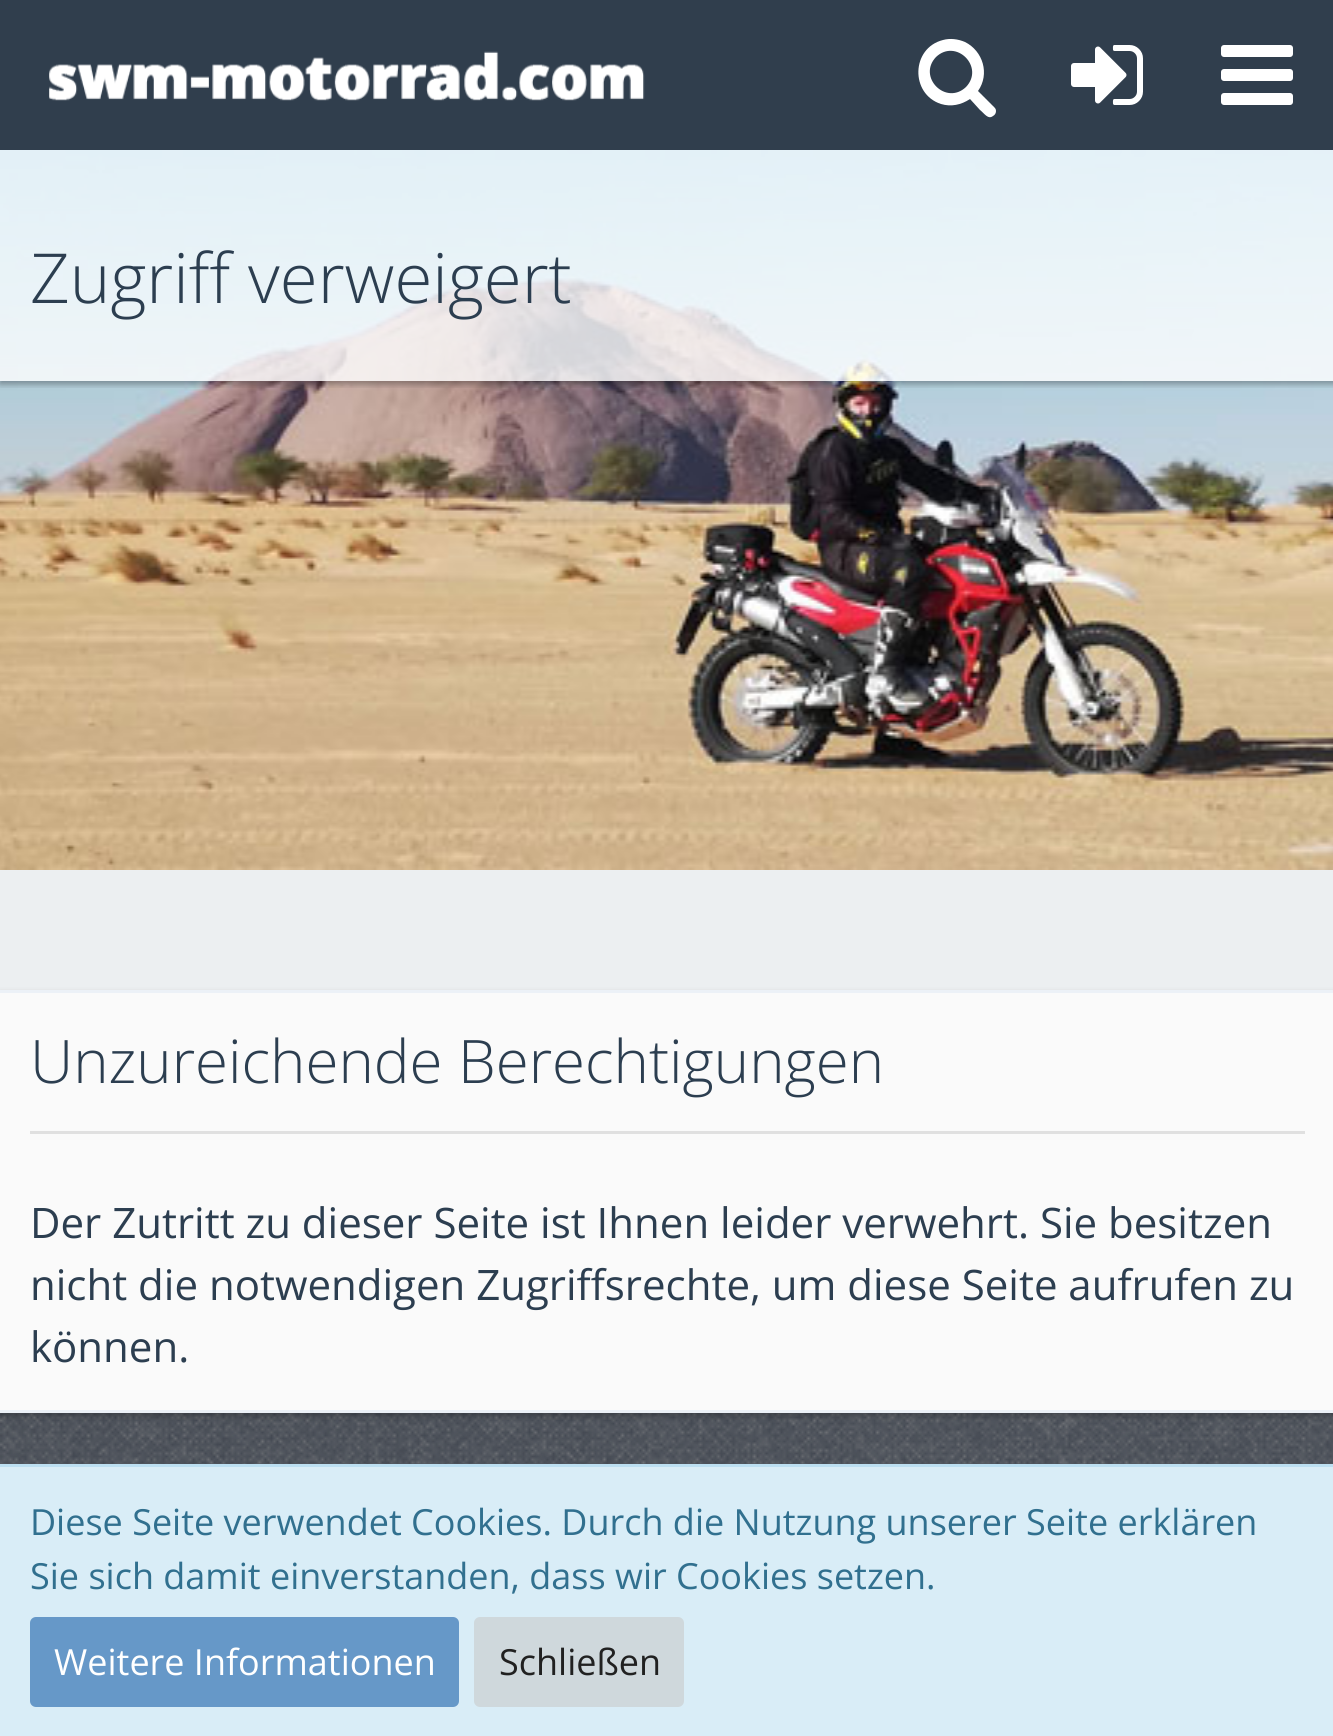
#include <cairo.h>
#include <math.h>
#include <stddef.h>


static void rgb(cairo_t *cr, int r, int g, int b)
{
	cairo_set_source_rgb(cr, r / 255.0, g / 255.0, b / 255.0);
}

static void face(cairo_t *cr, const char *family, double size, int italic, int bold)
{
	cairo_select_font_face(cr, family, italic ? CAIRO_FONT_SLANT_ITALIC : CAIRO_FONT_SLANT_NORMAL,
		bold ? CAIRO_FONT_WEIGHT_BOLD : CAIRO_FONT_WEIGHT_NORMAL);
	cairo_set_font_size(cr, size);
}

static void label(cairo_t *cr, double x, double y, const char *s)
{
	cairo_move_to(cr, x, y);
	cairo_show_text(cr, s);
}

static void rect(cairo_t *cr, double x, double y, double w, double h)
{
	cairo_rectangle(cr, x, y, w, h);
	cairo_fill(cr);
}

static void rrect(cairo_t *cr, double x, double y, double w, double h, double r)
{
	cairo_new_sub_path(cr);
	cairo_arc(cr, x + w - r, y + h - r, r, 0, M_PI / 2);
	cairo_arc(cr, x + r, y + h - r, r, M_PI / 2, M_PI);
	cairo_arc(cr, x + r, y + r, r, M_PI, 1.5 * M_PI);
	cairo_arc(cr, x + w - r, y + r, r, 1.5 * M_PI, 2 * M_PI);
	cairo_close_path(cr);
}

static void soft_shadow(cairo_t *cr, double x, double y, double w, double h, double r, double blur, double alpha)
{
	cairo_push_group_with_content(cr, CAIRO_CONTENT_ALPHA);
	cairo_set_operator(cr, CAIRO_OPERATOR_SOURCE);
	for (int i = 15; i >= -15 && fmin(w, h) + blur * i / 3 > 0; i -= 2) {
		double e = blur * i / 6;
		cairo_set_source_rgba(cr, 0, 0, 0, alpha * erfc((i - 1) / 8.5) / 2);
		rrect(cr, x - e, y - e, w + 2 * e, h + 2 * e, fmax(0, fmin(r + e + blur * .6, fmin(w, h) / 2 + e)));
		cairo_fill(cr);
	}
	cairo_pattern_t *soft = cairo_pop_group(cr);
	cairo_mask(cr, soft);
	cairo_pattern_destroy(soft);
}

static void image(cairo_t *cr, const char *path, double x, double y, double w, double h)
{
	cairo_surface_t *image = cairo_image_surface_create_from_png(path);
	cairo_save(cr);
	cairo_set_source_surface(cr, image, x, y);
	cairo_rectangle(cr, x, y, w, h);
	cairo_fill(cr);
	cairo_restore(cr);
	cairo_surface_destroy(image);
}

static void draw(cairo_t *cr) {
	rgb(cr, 25, 35, 53);
	cairo_paint(cr);
	image(cr, "image0.png", 0, 1413, 1333, 51);
	image(cr, "image4.png", 0, 150, 1333, 720);
	cairo_save(cr);
	cairo_rectangle(cr, 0, 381, 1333, 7);
	cairo_clip(cr);
	rgb(cr, 0, 0, 0);
	soft_shadow(cr, 0, 153, 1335, 231, 0, 3, 0.24);
	soft_shadow(cr, 0, 153, 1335, 231, 0, 4.5, 0.12);
	cairo_restore(cr);
	rgb(cr, 48, 62, 77);
	rect(cr, 0, 0, 1333, 150);
	image(cr, "image1.png", 49, 51, 596, 50);
	rgb(cr, 255, 255, 255);
	cairo_new_path(cr);
	cairo_move_to(cr, 966, 87);
	cairo_curve_to(cr, 985, 67, 956, 38, 936, 57);
	cairo_curve_to(cr, 917, 77, 946, 106, 966, 87);
	cairo_close_path(cr);
	cairo_move_to(cr, 996, 111);
	cairo_curve_to(cr, 996, 113, 995, 115, 993, 116);
	cairo_curve_to(cr, 988, 120, 984, 113, 980, 110);
	cairo_line_to(cr, 970, 99);
	cairo_curve_to(cr, 961, 105, 951, 107, 941, 104);
	cairo_curve_to(cr, 910, 94, 911, 48, 943, 40);
	cairo_curve_to(cr, 950, 38, 958, 39, 965, 42);
	cairo_curve_to(cr, 983, 51, 990, 74, 978, 91);
	cairo_line_to(cr, 994, 107);
	cairo_curve_to(cr, 995, 108, 996, 109, 996, 111);
	cairo_close_path(cr);
	cairo_fill(cr);
	image(cr, "image2.png", 1071, 45, 72, 60);
	image(cr, "image3.png", 1221, 45, 72, 60);
	cairo_set_source_rgba(cr, 1, 1, 1, 0.8);
	rect(cr, 0, 150, 1333, 231);
	face(cr, "Open Sans Light", 69, 0, 0);
	rgb(cr, 44, 62, 80);
	label(cr, 30, 303, "Zugriff verweigert");
	rgb(cr, 236, 239, 241);
	rect(cr, 0, 870, 1333, 120);
	rgb(cr, 0, 0, 0);
	soft_shadow(cr, 0, 993, 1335, 423, 0, 3, 0.24);
	rgb(cr, 250, 250, 250);
	rect(cr, 0, 993, 1333, 417);
	rgb(cr, 236, 241, 247);
	rect(cr, 0, 990, 1333, 3);
	rect(cr, 0, 1410, 1333, 3);
	rgb(cr, 224, 224, 224);
	rect(cr, 30, 1131, 1275, 3);
	face(cr, "Open Sans Light", 60, 0, 0);
	rgb(cr, 44, 62, 80);
	label(cr, 30, 1083, "Unzureichende Berechtigungen");
	face(cr, "Open Sans", 42, 0, 0);
	label(cr, 30, 1238, "Der Zutritt zu dieser Seite ist Ihnen leider verwehrt. Sie besitzen");
	label(cr, 30, 1300, "nicht die notwendigen Zugriffsrechte, um diese Seite aufrufen zu");
	label(cr, 30, 1362, "können.");
	rgb(cr, 217, 237, 247);
	rect(cr, 0, 1467, 1333, 269);
	rgb(cr, 188, 223, 241);
	rect(cr, 0, 1464, 1333, 3);
	face(cr, "Open Sans", 36, 0, 0);
	rgb(cr, 49, 112, 143);
	label(cr, 30, 1535, "Diese Seite verwendet Cookies. Durch die Nutzung unserer Seite erklären");
	label(cr, 30, 1589, "Sie sich damit einverstanden, dass wir Cookies setzen.");
	rgb(cr, 102, 152, 200);
	rrect(cr, 30, 1617, 429, 90, 6);
	cairo_fill(cr);
	rgb(cr, 255, 255, 255);
	label(cr, 54, 1675, "Weitere Informationen");
	rgb(cr, 207, 216, 220);
	rrect(cr, 474, 1617, 210, 90, 6);
	cairo_fill(cr);
	rgb(cr, 33, 33, 33);
	label(cr, 499, 1675, "Schließen");
}

int main(void) {
	cairo_surface_t *surface = cairo_image_surface_create(CAIRO_FORMAT_RGB24, 1333, 1736);
	cairo_t *cr = cairo_create(surface);
	cairo_font_options_t *options = cairo_font_options_create();
	cairo_font_options_set_hint_metrics(options, CAIRO_HINT_METRICS_OFF);
	cairo_font_options_set_hint_style(options, CAIRO_HINT_STYLE_NONE);
	cairo_set_font_options(cr, options);
	cairo_set_miter_limit(cr, 4);
	draw(cr);
	cairo_surface_write_to_png(surface, "render.png");
	cairo_font_options_destroy(options);
	cairo_destroy(cr);
	cairo_surface_destroy(surface);
	return 0;
}
